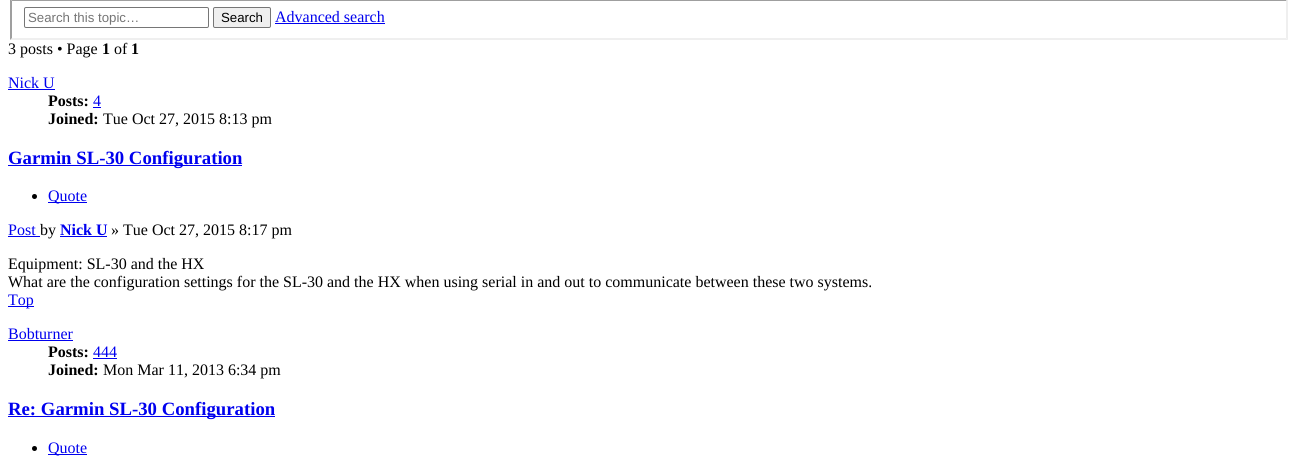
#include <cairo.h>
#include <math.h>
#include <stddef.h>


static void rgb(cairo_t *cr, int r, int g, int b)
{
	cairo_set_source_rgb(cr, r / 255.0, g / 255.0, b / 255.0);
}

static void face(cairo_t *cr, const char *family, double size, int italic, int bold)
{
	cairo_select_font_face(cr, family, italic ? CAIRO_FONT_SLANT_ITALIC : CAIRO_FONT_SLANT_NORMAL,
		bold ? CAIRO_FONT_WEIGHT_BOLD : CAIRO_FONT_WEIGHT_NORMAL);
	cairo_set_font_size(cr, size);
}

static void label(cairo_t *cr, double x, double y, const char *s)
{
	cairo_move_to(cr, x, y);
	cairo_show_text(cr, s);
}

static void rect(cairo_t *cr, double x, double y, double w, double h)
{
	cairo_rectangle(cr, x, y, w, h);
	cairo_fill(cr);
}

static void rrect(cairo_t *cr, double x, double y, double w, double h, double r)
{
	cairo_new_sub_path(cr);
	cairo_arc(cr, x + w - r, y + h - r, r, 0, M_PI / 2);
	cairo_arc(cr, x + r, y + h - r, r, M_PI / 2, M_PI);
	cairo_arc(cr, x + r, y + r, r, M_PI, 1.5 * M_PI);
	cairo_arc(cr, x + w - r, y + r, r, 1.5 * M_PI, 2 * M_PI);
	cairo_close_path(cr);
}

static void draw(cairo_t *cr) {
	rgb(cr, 255, 255, 255);
	cairo_paint(cr);
	rgb(cr, 159, 159, 159);
	cairo_new_path(cr);
	cairo_move_to(cr, 10, -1);
	cairo_line_to(cr, 1288, -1);
	cairo_line_to(cr, 1286, 1);
	cairo_line_to(cr, 12, 1);
	cairo_close_path(cr);
	cairo_fill(cr);
	rgb(cr, 239, 239, 239);
	cairo_new_path(cr);
	cairo_move_to(cr, 1288, -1);
	cairo_line_to(cr, 1288, 40);
	cairo_line_to(cr, 1286, 38);
	cairo_line_to(cr, 1286, 1);
	cairo_close_path(cr);
	cairo_fill(cr);
	cairo_new_path(cr);
	cairo_move_to(cr, 1288, 40);
	cairo_line_to(cr, 10, 40);
	cairo_line_to(cr, 12, 38);
	cairo_line_to(cr, 1286, 38);
	cairo_close_path(cr);
	cairo_fill(cr);
	rgb(cr, 159, 159, 159);
	cairo_new_path(cr);
	cairo_move_to(cr, 10, 40);
	cairo_line_to(cr, 10, -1);
	cairo_line_to(cr, 12, 1);
	cairo_line_to(cr, 12, 38);
	cairo_close_path(cr);
	cairo_fill(cr);
	rrect(cr, 24.5, 7.5, 184, 20, 1.5);
	rgb(cr, 118, 118, 118);
	cairo_set_line_width(cr, 1);
	cairo_stroke(cr);
	face(cr, "Liberation Sans", 13.25, 0, 0);
	rgb(cr, 117, 117, 117);
	label(cr, 28, 22, "Search this topic…");
	rgb(cr, 239, 239, 239);
	rrect(cr, 213.5, 7.5, 57, 20, 1.5);
	cairo_fill_preserve(cr);
	rgb(cr, 118, 118, 118);
	cairo_stroke(cr);
	rgb(cr, 0, 0, 0);
	label(cr, 221, 22, "Search");
	face(cr, "Liberation Serif", 16, 0, 0);
	rgb(cr, 0, 0, 238);
	label(cr, 275, 22, "Advanced search");
	rect(cr, 275, 23, 110, 1);
	rgb(cr, 0, 0, 0);
	label(cr, 8, 54, "3 posts • Page");
	face(cr, "Liberation Serif", 16, 0, 1);
	label(cr, 102, 54, "1");
	face(cr, "Liberation Serif", 16, 0, 0);
	label(cr, 114, 54, "of");
	face(cr, "Liberation Serif", 16, 0, 1);
	label(cr, 131, 54, "1");
	face(cr, "Liberation Serif", 16, 0, 0);
	rgb(cr, 0, 0, 238);
	label(cr, 8, 88, "Nick U");
	rect(cr, 8, 89, 47, 1);
	face(cr, "Liberation Serif", 16, 0, 1);
	rgb(cr, 0, 0, 0);
	label(cr, 48, 106, "Posts:");
	face(cr, "Liberation Serif", 16, 0, 0);
	rgb(cr, 0, 0, 238);
	label(cr, 93, 106, "4");
	rect(cr, 93, 107, 8, 1);
	face(cr, "Liberation Serif", 16, 0, 1);
	rgb(cr, 0, 0, 0);
	label(cr, 48, 124, "Joined:");
	face(cr, "Liberation Serif", 16, 0, 0);
	label(cr, 103, 124, "Tue Oct 27, 2015 8:13 pm");
	rgb(cr, 0, 0, 238);
	rect(cr, 8, 165, 234, 1);
	face(cr, "Liberation Serif", 18.75, 0, 1);
	label(cr, 8, 164, "Garmin SL-30 Configuration");
	rgb(cr, 0, 0, 0);
	cairo_new_path(cr);
	cairo_arc(cr, 34.5, 196.5, 2.5, 0, 2 * M_PI);
	cairo_fill(cr);
	rgb(cr, 0, 0, 238);
	rect(cr, 48, 202, 39, 1);
	face(cr, "Liberation Serif", 16, 0, 0);
	label(cr, 48, 201, "Quote");
	label(cr, 8, 235, "Post");
	rect(cr, 8, 236, 32, 1);
	rgb(cr, 0, 0, 0);
	label(cr, 40, 235, "by");
	face(cr, "Liberation Serif", 16, 0, 1);
	rgb(cr, 0, 0, 238);
	label(cr, 60, 235, "Nick U");
	rect(cr, 60, 236, 47, 1);
	face(cr, "Liberation Serif", 16, 0, 0);
	rgb(cr, 0, 0, 0);
	label(cr, 111, 235, "» Tue Oct 27, 2015 8:17 pm");
	label(cr, 8, 269, "Equipment: SL-30 and the HX");
	label(cr, 8, 287, "What are the configuration settings for the SL-30 and the HX when using serial in and out to communicate between these two systems.");
	rgb(cr, 0, 0, 238);
	rect(cr, 8, 306, 26, 1);
	label(cr, 8, 305, "Top");
	label(cr, 8, 339, "Bobturner");
	rect(cr, 8, 340, 65, 1);
	face(cr, "Liberation Serif", 16, 0, 1);
	rgb(cr, 0, 0, 0);
	label(cr, 48, 357, "Posts:");
	face(cr, "Liberation Serif", 16, 0, 0);
	rgb(cr, 0, 0, 238);
	label(cr, 93, 357, "444");
	rect(cr, 93, 358, 24, 1);
	face(cr, "Liberation Serif", 16, 0, 1);
	rgb(cr, 0, 0, 0);
	label(cr, 48, 375, "Joined:");
	face(cr, "Liberation Serif", 16, 0, 0);
	label(cr, 103, 375, "Mon Mar 11, 2013 6:34 pm");
	rgb(cr, 0, 0, 238);
	rect(cr, 8, 416, 267, 1);
	face(cr, "Liberation Serif", 18.75, 0, 1);
	label(cr, 8, 415, "Re: Garmin SL-30 Configuration");
	rgb(cr, 0, 0, 0);
	cairo_new_path(cr);
	cairo_arc(cr, 34.5, 448.5, 2.5, 0, 2 * M_PI);
	cairo_fill(cr);
	rgb(cr, 0, 0, 238);
	rect(cr, 48, 454, 39, 1);
	face(cr, "Liberation Serif", 16, 0, 0);
	label(cr, 48, 453, "Quote");
}

int main(void) {
	cairo_surface_t *surface = cairo_image_surface_create(CAIRO_FORMAT_RGB24, 1298, 473);
	cairo_t *cr = cairo_create(surface);
	cairo_font_options_t *options = cairo_font_options_create();
	cairo_font_options_set_hint_metrics(options, CAIRO_HINT_METRICS_OFF);
	cairo_font_options_set_hint_style(options, CAIRO_HINT_STYLE_NONE);
	cairo_set_font_options(cr, options);
	cairo_set_miter_limit(cr, 4);
	draw(cr);
	cairo_surface_write_to_png(surface, "render.png");
	cairo_font_options_destroy(options);
	cairo_destroy(cr);
	cairo_surface_destroy(surface);
	return 0;
}
